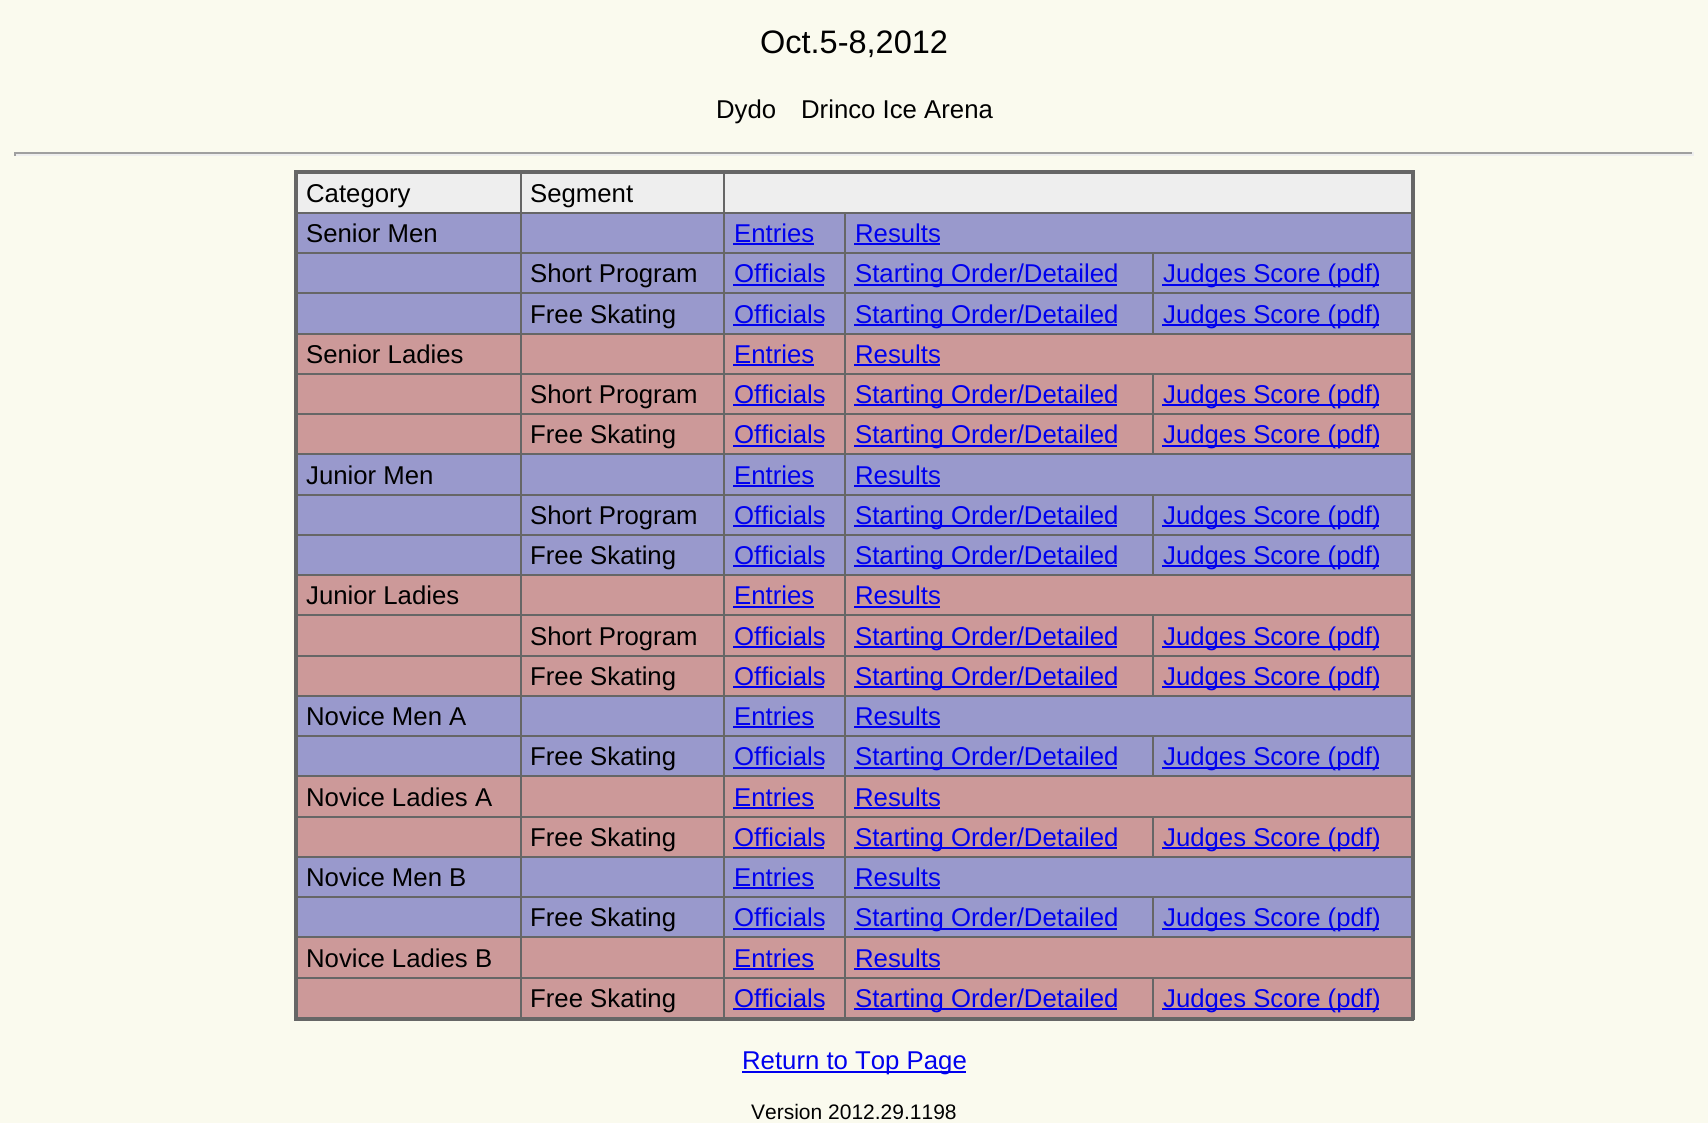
#include <cairo.h>
#include <math.h>
#include <stddef.h>


static void rgb(cairo_t *cr, int r, int g, int b)
{
	cairo_set_source_rgb(cr, r / 255.0, g / 255.0, b / 255.0);
}

static void face(cairo_t *cr, const char *family, double size, int italic, int bold)
{
	cairo_select_font_face(cr, family, italic ? CAIRO_FONT_SLANT_ITALIC : CAIRO_FONT_SLANT_NORMAL,
		bold ? CAIRO_FONT_WEIGHT_BOLD : CAIRO_FONT_WEIGHT_NORMAL);
	cairo_set_font_size(cr, size);
}

static void label(cairo_t *cr, double x, double y, const char *s)
{
	cairo_move_to(cr, x, y);
	cairo_show_text(cr, s);
}

static void rect(cairo_t *cr, double x, double y, double w, double h)
{
	cairo_rectangle(cr, x, y, w, h);
	cairo_fill(cr);
}

static void draw(cairo_t *cr) {
	rgb(cr, 250, 250, 238);
	cairo_paint(cr);
	face(cr, "Liberation Sans", 32.5, 0, 0);
	rgb(cr, 0, 0, 0);
	label(cr, 760, 53, "Oct.5-8,2012");
	face(cr, "Liberation Sans", 25.75, 0, 0);
	label(cr, 716, 118, "Dydo");
	label(cr, 801, 118, "Drinco Ice Arena");
	rgb(cr, 159, 159, 159);
	rect(cr, 14, 152, 1680, 2);
	rgb(cr, 238, 238, 238);
	rect(cr, 1692, 152, 2, 4);
	rect(cr, 14, 154, 1680, 2);
	rgb(cr, 159, 159, 159);
	rect(cr, 14, 152, 2, 4);
	rgb(cr, 238, 238, 238);
	rect(cr, 298, 174, 1113, 38);
	rgb(cr, 102, 102, 102);
	rect(cr, 844, 212, 570, 2);
	rgb(cr, 153, 153, 204);
	rect(cr, 298, 214, 1113, 38);
	rgb(cr, 102, 102, 102);
	rect(cr, 1152, 252, 262, 2);
	rgb(cr, 153, 153, 204);
	rect(cr, 298, 254, 1113, 38);
	rgb(cr, 102, 102, 102);
	rect(cr, 1152, 292, 262, 2);
	rgb(cr, 153, 153, 204);
	rect(cr, 298, 294, 1113, 39);
	rgb(cr, 102, 102, 102);
	rect(cr, 844, 333, 570, 2);
	rect(cr, 1152, 292, 2, 42);
	rect(cr, 844, 292, 309, 2);
	rect(cr, 1152, 252, 2, 42);
	rect(cr, 844, 252, 309, 2);
	rgb(cr, 204, 153, 153);
	rect(cr, 298, 335, 1113, 38);
	rgb(cr, 102, 102, 102);
	rect(cr, 1152, 373, 262, 2);
	rgb(cr, 204, 153, 153);
	rect(cr, 298, 375, 1113, 38);
	rgb(cr, 102, 102, 102);
	rect(cr, 1152, 413, 262, 2);
	rgb(cr, 204, 153, 153);
	rect(cr, 298, 415, 1113, 38);
	rgb(cr, 102, 102, 102);
	rect(cr, 844, 453, 570, 2);
	rect(cr, 1152, 413, 2, 42);
	rect(cr, 844, 413, 309, 2);
	rect(cr, 1152, 373, 2, 42);
	rect(cr, 844, 373, 309, 2);
	rgb(cr, 153, 153, 204);
	rect(cr, 298, 455, 1113, 39);
	rgb(cr, 102, 102, 102);
	rect(cr, 1152, 494, 262, 2);
	rgb(cr, 153, 153, 204);
	rect(cr, 298, 496, 1113, 38);
	rgb(cr, 102, 102, 102);
	rect(cr, 1152, 534, 262, 2);
	rgb(cr, 153, 153, 204);
	rect(cr, 298, 536, 1113, 38);
	rgb(cr, 102, 102, 102);
	rect(cr, 844, 574, 570, 2);
	rect(cr, 1152, 534, 2, 42);
	rect(cr, 844, 534, 309, 2);
	rect(cr, 1152, 494, 2, 42);
	rect(cr, 844, 494, 309, 2);
	rgb(cr, 204, 153, 153);
	rect(cr, 298, 576, 1113, 38);
	rgb(cr, 102, 102, 102);
	rect(cr, 1152, 614, 262, 2);
	rgb(cr, 204, 153, 153);
	rect(cr, 298, 616, 1113, 39);
	rgb(cr, 102, 102, 102);
	rect(cr, 1152, 655, 262, 2);
	rgb(cr, 204, 153, 153);
	rect(cr, 298, 657, 1113, 38);
	rgb(cr, 102, 102, 102);
	rect(cr, 844, 695, 570, 2);
	rect(cr, 1152, 655, 2, 42);
	rect(cr, 844, 655, 309, 2);
	rect(cr, 1152, 614, 2, 42);
	rect(cr, 844, 614, 309, 2);
	rgb(cr, 153, 153, 204);
	rect(cr, 298, 697, 1113, 38);
	rgb(cr, 102, 102, 102);
	rect(cr, 1152, 735, 262, 2);
	rgb(cr, 153, 153, 204);
	rect(cr, 298, 737, 1113, 38);
	rgb(cr, 102, 102, 102);
	rect(cr, 844, 775, 570, 2);
	rect(cr, 1152, 735, 2, 42);
	rect(cr, 844, 735, 309, 2);
	rgb(cr, 204, 153, 153);
	rect(cr, 298, 777, 1113, 39);
	rgb(cr, 102, 102, 102);
	rect(cr, 1152, 816, 262, 2);
	rgb(cr, 204, 153, 153);
	rect(cr, 298, 818, 1113, 38);
	rgb(cr, 102, 102, 102);
	rect(cr, 844, 856, 570, 2);
	rect(cr, 1152, 816, 2, 42);
	rect(cr, 844, 816, 309, 2);
	rgb(cr, 153, 153, 204);
	rect(cr, 298, 858, 1113, 38);
	rgb(cr, 102, 102, 102);
	rect(cr, 1152, 896, 262, 2);
	rgb(cr, 153, 153, 204);
	rect(cr, 298, 898, 1113, 38);
	rgb(cr, 102, 102, 102);
	rect(cr, 844, 936, 570, 2);
	rect(cr, 1152, 896, 2, 42);
	rect(cr, 844, 896, 309, 2);
	rgb(cr, 204, 153, 153);
	rect(cr, 298, 938, 1113, 39);
	rgb(cr, 102, 102, 102);
	rect(cr, 1152, 977, 262, 2);
	rgb(cr, 204, 153, 153);
	rect(cr, 298, 979, 1113, 38);
	rgb(cr, 102, 102, 102);
	rect(cr, 1152, 977, 2, 43);
	rect(cr, 844, 977, 309, 2);
	rect(cr, 844, 977, 2, 43);
	rect(cr, 723, 977, 122, 2);
	rect(cr, 844, 936, 2, 42);
	rect(cr, 723, 936, 122, 2);
	rect(cr, 844, 896, 2, 42);
	rect(cr, 723, 896, 122, 2);
	rect(cr, 844, 856, 2, 42);
	rect(cr, 723, 856, 122, 2);
	rect(cr, 844, 816, 2, 42);
	rect(cr, 723, 816, 122, 2);
	rect(cr, 844, 775, 2, 42);
	rect(cr, 723, 775, 122, 2);
	rect(cr, 844, 735, 2, 42);
	rect(cr, 723, 735, 122, 2);
	rect(cr, 844, 695, 2, 42);
	rect(cr, 723, 695, 122, 2);
	rect(cr, 844, 655, 2, 42);
	rect(cr, 723, 655, 122, 2);
	rect(cr, 844, 614, 2, 42);
	rect(cr, 723, 614, 122, 2);
	rect(cr, 844, 574, 2, 42);
	rect(cr, 723, 574, 122, 2);
	rect(cr, 844, 534, 2, 42);
	rect(cr, 723, 534, 122, 2);
	rect(cr, 844, 494, 2, 42);
	rect(cr, 723, 494, 122, 2);
	rect(cr, 844, 453, 2, 42);
	rect(cr, 723, 453, 122, 2);
	rect(cr, 844, 413, 2, 42);
	rect(cr, 723, 413, 122, 2);
	rect(cr, 844, 373, 2, 42);
	rect(cr, 723, 373, 122, 2);
	rect(cr, 844, 333, 2, 42);
	rect(cr, 723, 333, 122, 2);
	rect(cr, 844, 292, 2, 42);
	rect(cr, 723, 292, 122, 2);
	rect(cr, 844, 252, 2, 42);
	rect(cr, 723, 252, 122, 2);
	rect(cr, 844, 212, 2, 42);
	rect(cr, 723, 212, 122, 2);
	rect(cr, 723, 977, 2, 43);
	rect(cr, 520, 977, 205, 2);
	rect(cr, 723, 936, 2, 42);
	rect(cr, 520, 936, 205, 2);
	rect(cr, 723, 896, 2, 42);
	rect(cr, 520, 896, 205, 2);
	rect(cr, 723, 856, 2, 42);
	rect(cr, 520, 856, 205, 2);
	rect(cr, 723, 816, 2, 42);
	rect(cr, 520, 816, 205, 2);
	rect(cr, 723, 775, 2, 42);
	rect(cr, 520, 775, 205, 2);
	rect(cr, 723, 735, 2, 42);
	rect(cr, 520, 735, 205, 2);
	rect(cr, 723, 695, 2, 42);
	rect(cr, 520, 695, 205, 2);
	rect(cr, 723, 655, 2, 42);
	rect(cr, 520, 655, 205, 2);
	rect(cr, 723, 614, 2, 42);
	rect(cr, 520, 614, 205, 2);
	rect(cr, 723, 574, 2, 42);
	rect(cr, 520, 574, 205, 2);
	rect(cr, 723, 534, 2, 42);
	rect(cr, 520, 534, 205, 2);
	rect(cr, 723, 494, 2, 42);
	rect(cr, 520, 494, 205, 2);
	rect(cr, 723, 453, 2, 42);
	rect(cr, 520, 453, 205, 2);
	rect(cr, 723, 413, 2, 42);
	rect(cr, 520, 413, 205, 2);
	rect(cr, 723, 373, 2, 42);
	rect(cr, 520, 373, 205, 2);
	rect(cr, 723, 333, 2, 42);
	rect(cr, 520, 333, 205, 2);
	rect(cr, 723, 292, 2, 42);
	rect(cr, 520, 292, 205, 2);
	rect(cr, 723, 252, 2, 42);
	rect(cr, 520, 252, 205, 2);
	rect(cr, 723, 212, 2, 42);
	rect(cr, 520, 212, 205, 2);
	rect(cr, 520, 977, 2, 43);
	rect(cr, 296, 977, 226, 2);
	rect(cr, 520, 936, 2, 42);
	rect(cr, 296, 936, 226, 2);
	rect(cr, 520, 896, 2, 42);
	rect(cr, 296, 896, 226, 2);
	rect(cr, 520, 856, 2, 42);
	rect(cr, 296, 856, 226, 2);
	rect(cr, 520, 816, 2, 42);
	rect(cr, 296, 816, 226, 2);
	rect(cr, 520, 775, 2, 42);
	rect(cr, 296, 775, 226, 2);
	rect(cr, 520, 735, 2, 42);
	rect(cr, 296, 735, 226, 2);
	rect(cr, 520, 695, 2, 42);
	rect(cr, 296, 695, 226, 2);
	rect(cr, 520, 655, 2, 42);
	rect(cr, 296, 655, 226, 2);
	rect(cr, 520, 614, 2, 42);
	rect(cr, 296, 614, 226, 2);
	rect(cr, 520, 574, 2, 42);
	rect(cr, 296, 574, 226, 2);
	rect(cr, 520, 534, 2, 42);
	rect(cr, 296, 534, 226, 2);
	rect(cr, 520, 494, 2, 42);
	rect(cr, 296, 494, 226, 2);
	rect(cr, 520, 453, 2, 42);
	rect(cr, 296, 453, 226, 2);
	rect(cr, 520, 413, 2, 42);
	rect(cr, 296, 413, 226, 2);
	rect(cr, 520, 373, 2, 42);
	rect(cr, 296, 373, 226, 2);
	rect(cr, 520, 333, 2, 42);
	rect(cr, 296, 333, 226, 2);
	rect(cr, 520, 292, 2, 42);
	rect(cr, 296, 292, 226, 2);
	rect(cr, 520, 252, 2, 42);
	rect(cr, 296, 252, 226, 2);
	rect(cr, 520, 212, 2, 42);
	rect(cr, 296, 212, 226, 2);
	rect(cr, 520, 172, 2, 42);
	rect(cr, 723, 172, 2, 42);
	rect(cr, 294, 170, 1120, 4);
	rect(cr, 1411, 170, 4, 850);
	rect(cr, 294, 1017, 1120, 4);
	rect(cr, 294, 170, 4, 850);
	rgb(cr, 0, 0, 0);
	label(cr, 306, 202, "Category");
	label(cr, 530, 202, "Segment");
	label(cr, 306, 242, "Senior Men");
	rgb(cr, 0, 0, 238);
	label(cr, 734, 242, "Entries");
	rect(cr, 733, 243, 81, 2);
	label(cr, 855, 242, "Results");
	rect(cr, 854, 243, 86, 2);
	rgb(cr, 0, 0, 0);
	label(cr, 530, 282, "Short Program");
	rgb(cr, 0, 0, 238);
	label(cr, 734, 282, "Officials");
	rect(cr, 733, 284, 91, 2);
	rect(cr, 854, 284, 263, 2);
	label(cr, 855, 282, "Starting Order/Detailed");
	rect(cr, 1162, 284, 217, 2);
	label(cr, 1163, 282, "Judges Score (pdf)");
	rgb(cr, 0, 0, 0);
	label(cr, 530, 323, "Free Skating");
	rgb(cr, 0, 0, 238);
	label(cr, 734, 323, "Officials");
	rect(cr, 733, 324, 91, 2);
	rect(cr, 854, 324, 263, 2);
	label(cr, 855, 323, "Starting Order/Detailed");
	rect(cr, 1162, 324, 217, 2);
	label(cr, 1163, 323, "Judges Score (pdf)");
	rgb(cr, 0, 0, 0);
	label(cr, 306, 363, "Senior Ladies");
	rgb(cr, 0, 0, 238);
	label(cr, 734, 363, "Entries");
	rect(cr, 733, 364, 81, 2);
	label(cr, 855, 363, "Results");
	rect(cr, 854, 364, 86, 2);
	rgb(cr, 0, 0, 0);
	label(cr, 530, 403, "Short Program");
	rgb(cr, 0, 0, 238);
	label(cr, 734, 403, "Officials");
	rect(cr, 733, 404, 91, 2);
	rect(cr, 854, 404, 263, 2);
	label(cr, 855, 403, "Starting Order/Detailed");
	rect(cr, 1162, 404, 217, 2);
	label(cr, 1163, 403, "Judges Score (pdf)");
	rgb(cr, 0, 0, 0);
	label(cr, 530, 443, "Free Skating");
	rgb(cr, 0, 0, 238);
	label(cr, 734, 443, "Officials");
	rect(cr, 733, 445, 91, 2);
	rect(cr, 854, 445, 263, 2);
	label(cr, 855, 443, "Starting Order/Detailed");
	rect(cr, 1162, 445, 217, 2);
	label(cr, 1163, 443, "Judges Score (pdf)");
	rgb(cr, 0, 0, 0);
	label(cr, 306, 484, "Junior Men");
	rgb(cr, 0, 0, 238);
	label(cr, 734, 484, "Entries");
	rect(cr, 733, 485, 81, 2);
	label(cr, 855, 484, "Results");
	rect(cr, 854, 485, 86, 2);
	rgb(cr, 0, 0, 0);
	label(cr, 530, 524, "Short Program");
	rgb(cr, 0, 0, 238);
	label(cr, 734, 524, "Officials");
	rect(cr, 733, 525, 91, 2);
	rect(cr, 854, 525, 263, 2);
	label(cr, 855, 524, "Starting Order/Detailed");
	rect(cr, 1162, 525, 217, 2);
	label(cr, 1163, 524, "Judges Score (pdf)");
	rgb(cr, 0, 0, 0);
	label(cr, 530, 564, "Free Skating");
	rgb(cr, 0, 0, 238);
	label(cr, 734, 564, "Officials");
	rect(cr, 733, 565, 91, 2);
	rect(cr, 854, 565, 263, 2);
	label(cr, 855, 564, "Starting Order/Detailed");
	rect(cr, 1162, 565, 217, 2);
	label(cr, 1163, 564, "Judges Score (pdf)");
	rgb(cr, 0, 0, 0);
	label(cr, 306, 604, "Junior Ladies");
	rgb(cr, 0, 0, 238);
	label(cr, 734, 604, "Entries");
	rect(cr, 733, 606, 81, 2);
	label(cr, 855, 604, "Results");
	rect(cr, 854, 606, 86, 2);
	rgb(cr, 0, 0, 0);
	label(cr, 530, 645, "Short Program");
	rgb(cr, 0, 0, 238);
	label(cr, 734, 645, "Officials");
	rect(cr, 733, 646, 91, 2);
	rect(cr, 854, 646, 263, 2);
	label(cr, 855, 645, "Starting Order/Detailed");
	rect(cr, 1162, 646, 217, 2);
	label(cr, 1163, 645, "Judges Score (pdf)");
	rgb(cr, 0, 0, 0);
	label(cr, 530, 685, "Free Skating");
	rgb(cr, 0, 0, 238);
	label(cr, 734, 685, "Officials");
	rect(cr, 733, 686, 91, 2);
	rect(cr, 854, 686, 263, 2);
	label(cr, 855, 685, "Starting Order/Detailed");
	rect(cr, 1162, 686, 217, 2);
	label(cr, 1163, 685, "Judges Score (pdf)");
	rgb(cr, 0, 0, 0);
	label(cr, 306, 725, "Novice Men A");
	rgb(cr, 0, 0, 238);
	label(cr, 734, 725, "Entries");
	rect(cr, 733, 726, 81, 2);
	label(cr, 855, 725, "Results");
	rect(cr, 854, 726, 86, 2);
	rgb(cr, 0, 0, 0);
	label(cr, 530, 765, "Free Skating");
	rgb(cr, 0, 0, 238);
	label(cr, 734, 765, "Officials");
	rect(cr, 733, 767, 91, 2);
	rect(cr, 854, 767, 263, 2);
	label(cr, 855, 765, "Starting Order/Detailed");
	rect(cr, 1162, 767, 217, 2);
	label(cr, 1163, 765, "Judges Score (pdf)");
	rgb(cr, 0, 0, 0);
	label(cr, 306, 806, "Novice Ladies A");
	rgb(cr, 0, 0, 238);
	label(cr, 734, 806, "Entries");
	rect(cr, 733, 807, 81, 2);
	label(cr, 855, 806, "Results");
	rect(cr, 854, 807, 86, 2);
	rgb(cr, 0, 0, 0);
	label(cr, 530, 846, "Free Skating");
	rgb(cr, 0, 0, 238);
	label(cr, 734, 846, "Officials");
	rect(cr, 733, 847, 91, 2);
	rect(cr, 854, 847, 263, 2);
	label(cr, 855, 846, "Starting Order/Detailed");
	rect(cr, 1162, 847, 217, 2);
	label(cr, 1163, 846, "Judges Score (pdf)");
	rgb(cr, 0, 0, 0);
	label(cr, 306, 886, "Novice Men B");
	rgb(cr, 0, 0, 238);
	label(cr, 734, 886, "Entries");
	rect(cr, 733, 887, 81, 2);
	label(cr, 855, 886, "Results");
	rect(cr, 854, 887, 86, 2);
	rgb(cr, 0, 0, 0);
	label(cr, 530, 926, "Free Skating");
	rgb(cr, 0, 0, 238);
	label(cr, 734, 926, "Officials");
	rect(cr, 733, 928, 91, 2);
	rect(cr, 854, 928, 263, 2);
	label(cr, 855, 926, "Starting Order/Detailed");
	rect(cr, 1162, 928, 217, 2);
	label(cr, 1163, 926, "Judges Score (pdf)");
	rgb(cr, 0, 0, 0);
	label(cr, 306, 967, "Novice Ladies B");
	rgb(cr, 0, 0, 238);
	label(cr, 734, 967, "Entries");
	rect(cr, 733, 968, 81, 2);
	label(cr, 855, 967, "Results");
	rect(cr, 854, 968, 86, 2);
	rgb(cr, 0, 0, 0);
	label(cr, 530, 1007, "Free Skating");
	rgb(cr, 0, 0, 238);
	label(cr, 734, 1007, "Officials");
	rect(cr, 733, 1008, 91, 2);
	rect(cr, 854, 1008, 263, 2);
	label(cr, 855, 1007, "Starting Order/Detailed");
	rect(cr, 1162, 1008, 217, 2);
	label(cr, 1163, 1007, "Judges Score (pdf)");
	rect(cr, 742, 1071, 224, 2);
	label(cr, 742, 1069, "Return to Top Page");
	face(cr, "Liberation Sans", 21, 0, 0);
	rgb(cr, 0, 0, 0);
	label(cr, 751, 1119, "Version 2012.29.1198");
}

int main(void) {
	cairo_surface_t *surface = cairo_image_surface_create(CAIRO_FORMAT_RGB24, 1708, 1123);
	cairo_t *cr = cairo_create(surface);
	cairo_font_options_t *options = cairo_font_options_create();
	cairo_font_options_set_hint_metrics(options, CAIRO_HINT_METRICS_OFF);
	cairo_font_options_set_hint_style(options, CAIRO_HINT_STYLE_NONE);
	cairo_set_font_options(cr, options);
	cairo_set_miter_limit(cr, 4);
	draw(cr);
	cairo_surface_write_to_png(surface, "render.png");
	cairo_font_options_destroy(options);
	cairo_destroy(cr);
	cairo_surface_destroy(surface);
	return 0;
}
